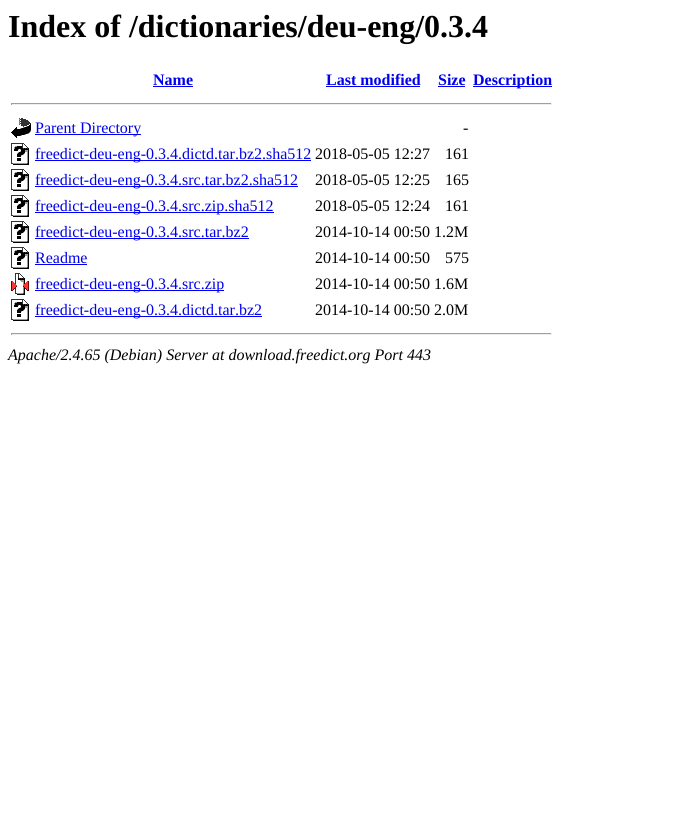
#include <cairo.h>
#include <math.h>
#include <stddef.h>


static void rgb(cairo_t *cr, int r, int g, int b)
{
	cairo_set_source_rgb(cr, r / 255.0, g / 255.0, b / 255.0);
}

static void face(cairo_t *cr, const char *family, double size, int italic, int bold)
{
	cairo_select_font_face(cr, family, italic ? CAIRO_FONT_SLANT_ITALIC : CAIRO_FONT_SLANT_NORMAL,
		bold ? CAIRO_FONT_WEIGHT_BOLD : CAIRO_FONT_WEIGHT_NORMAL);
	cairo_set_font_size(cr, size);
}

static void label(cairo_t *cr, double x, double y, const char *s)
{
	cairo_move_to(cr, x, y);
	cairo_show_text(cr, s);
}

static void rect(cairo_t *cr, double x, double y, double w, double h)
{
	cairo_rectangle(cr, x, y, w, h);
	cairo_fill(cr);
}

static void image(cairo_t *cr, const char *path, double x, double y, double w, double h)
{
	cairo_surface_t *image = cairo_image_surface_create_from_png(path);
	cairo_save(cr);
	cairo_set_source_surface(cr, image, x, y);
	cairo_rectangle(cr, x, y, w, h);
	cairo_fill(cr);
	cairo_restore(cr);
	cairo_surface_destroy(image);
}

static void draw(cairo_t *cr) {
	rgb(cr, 255, 255, 255);
	cairo_paint(cr);
	face(cr, "Liberation Serif", 32, 0, 1);
	rgb(cr, 0, 0, 0);
	label(cr, 8, 37, "Index of /dictionaries/deu-eng/0.3.4");
	face(cr, "Liberation Serif", 16, 0, 1);
	rgb(cr, 0, 0, 238);
	label(cr, 153, 85, "Name");
	rect(cr, 153, 86, 40, 1);
	label(cr, 326, 85, "Last modified");
	rect(cr, 326, 86, 94, 1);
	label(cr, 438, 85, "Size");
	rect(cr, 438, 86, 27, 1);
	rect(cr, 473, 86, 79, 1);
	label(cr, 473, 85, "Description");
	rgb(cr, 159, 159, 159);
	rect(cr, 11, 103, 541, 1);
	rgb(cr, 238, 238, 238);
	rect(cr, 551, 103, 1, 2);
	rect(cr, 11, 104, 541, 1);
	rgb(cr, 159, 159, 159);
	rect(cr, 11, 103, 1, 2);
	image(cr, "image0.png", 11, 118, 20, 20);
	rgb(cr, 0, 0, 238);
	rect(cr, 35, 134, 106, 1);
	face(cr, "Liberation Serif", 16, 0, 0);
	label(cr, 35, 133, "Parent Directory");
	rgb(cr, 0, 0, 0);
	label(cr, 463, 133, "-");
	image(cr, "image1.png", 11, 143, 18, 22);
	rgb(cr, 0, 0, 238);
	rect(cr, 35, 160, 276, 1);
	label(cr, 35, 159, "freedict-deu-eng-0.3.4.dictd.tar.bz2.sha512");
	rgb(cr, 0, 0, 0);
	label(cr, 315, 159, "2018-05-05 12:27");
	label(cr, 445, 159, "161");
	image(cr, "image1.png", 11, 169, 18, 22);
	rgb(cr, 0, 0, 238);
	rect(cr, 35, 186, 263, 1);
	label(cr, 35, 185, "freedict-deu-eng-0.3.4.src.tar.bz2.sha512");
	rgb(cr, 0, 0, 0);
	label(cr, 315, 185, "2018-05-05 12:25");
	label(cr, 445, 185, "165");
	image(cr, "image1.png", 11, 195, 18, 22);
	rgb(cr, 0, 0, 238);
	rect(cr, 35, 212, 239, 1);
	label(cr, 35, 211, "freedict-deu-eng-0.3.4.src.zip.sha512");
	rgb(cr, 0, 0, 0);
	label(cr, 315, 211, "2018-05-05 12:24");
	label(cr, 445, 211, "161");
	image(cr, "image1.png", 11, 221, 18, 22);
	rgb(cr, 0, 0, 238);
	rect(cr, 35, 238, 214, 1);
	label(cr, 35, 237, "freedict-deu-eng-0.3.4.src.tar.bz2");
	rgb(cr, 0, 0, 0);
	label(cr, 315, 237, "2014-10-14 00:50 1.2M");
	image(cr, "image1.png", 11, 247, 18, 22);
	rgb(cr, 0, 0, 238);
	label(cr, 35, 263, "Readme");
	rect(cr, 35, 264, 52, 1);
	rgb(cr, 0, 0, 0);
	label(cr, 315, 263, "2014-10-14 00:50");
	label(cr, 445, 263, "575");
	image(cr, "image2.png", 11, 273, 18, 22);
	rgb(cr, 0, 0, 238);
	rect(cr, 35, 290, 189, 1);
	label(cr, 35, 289, "freedict-deu-eng-0.3.4.src.zip");
	rgb(cr, 0, 0, 0);
	label(cr, 315, 289, "2014-10-14 00:50 1.6M");
	image(cr, "image1.png", 11, 299, 18, 22);
	rgb(cr, 0, 0, 238);
	rect(cr, 35, 316, 227, 1);
	label(cr, 35, 315, "freedict-deu-eng-0.3.4.dictd.tar.bz2");
	rgb(cr, 0, 0, 0);
	label(cr, 315, 315, "2014-10-14 00:50 2.0M");
	rgb(cr, 159, 159, 159);
	rect(cr, 11, 333, 541, 1);
	rgb(cr, 238, 238, 238);
	rect(cr, 551, 333, 1, 2);
	rect(cr, 11, 334, 541, 1);
	rgb(cr, 159, 159, 159);
	rect(cr, 11, 333, 1, 2);
	face(cr, "Liberation Serif", 16, 1, 0);
	rgb(cr, 0, 0, 0);
	label(cr, 8, 360, "Apache/2.4.65 (Debian) Server at download.freedict.org Port 443");
}

int main(void) {
	cairo_surface_t *surface = cairo_image_surface_create(CAIRO_FORMAT_RGB24, 677, 838);
	cairo_t *cr = cairo_create(surface);
	cairo_font_options_t *options = cairo_font_options_create();
	cairo_font_options_set_hint_metrics(options, CAIRO_HINT_METRICS_OFF);
	cairo_font_options_set_hint_style(options, CAIRO_HINT_STYLE_NONE);
	cairo_set_font_options(cr, options);
	cairo_set_miter_limit(cr, 4);
	draw(cr);
	cairo_surface_write_to_png(surface, "render.png");
	cairo_font_options_destroy(options);
	cairo_destroy(cr);
	cairo_surface_destroy(surface);
	return 0;
}
